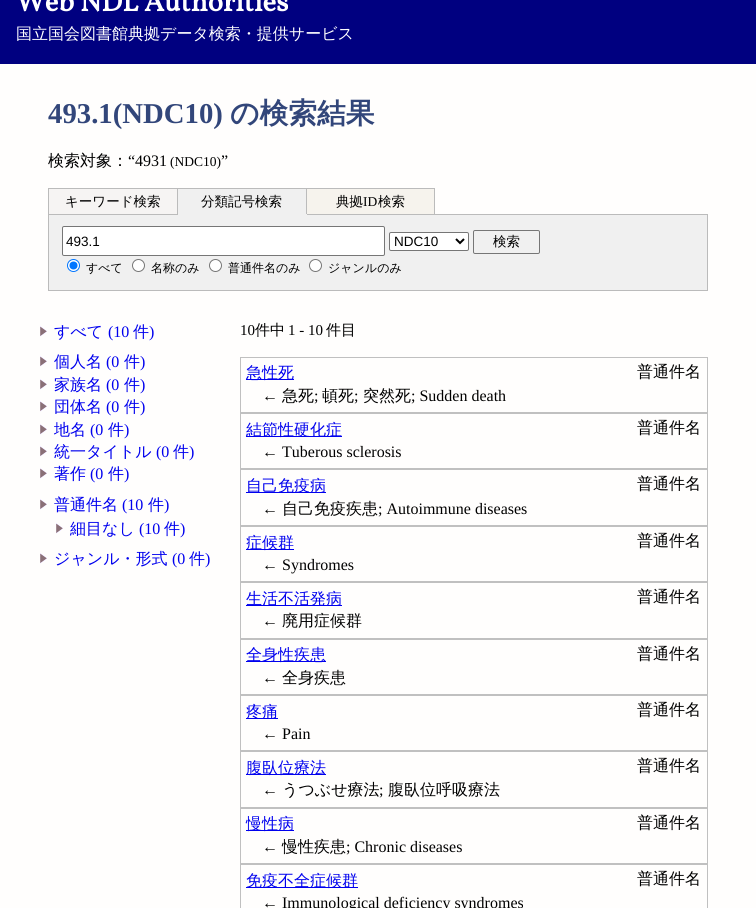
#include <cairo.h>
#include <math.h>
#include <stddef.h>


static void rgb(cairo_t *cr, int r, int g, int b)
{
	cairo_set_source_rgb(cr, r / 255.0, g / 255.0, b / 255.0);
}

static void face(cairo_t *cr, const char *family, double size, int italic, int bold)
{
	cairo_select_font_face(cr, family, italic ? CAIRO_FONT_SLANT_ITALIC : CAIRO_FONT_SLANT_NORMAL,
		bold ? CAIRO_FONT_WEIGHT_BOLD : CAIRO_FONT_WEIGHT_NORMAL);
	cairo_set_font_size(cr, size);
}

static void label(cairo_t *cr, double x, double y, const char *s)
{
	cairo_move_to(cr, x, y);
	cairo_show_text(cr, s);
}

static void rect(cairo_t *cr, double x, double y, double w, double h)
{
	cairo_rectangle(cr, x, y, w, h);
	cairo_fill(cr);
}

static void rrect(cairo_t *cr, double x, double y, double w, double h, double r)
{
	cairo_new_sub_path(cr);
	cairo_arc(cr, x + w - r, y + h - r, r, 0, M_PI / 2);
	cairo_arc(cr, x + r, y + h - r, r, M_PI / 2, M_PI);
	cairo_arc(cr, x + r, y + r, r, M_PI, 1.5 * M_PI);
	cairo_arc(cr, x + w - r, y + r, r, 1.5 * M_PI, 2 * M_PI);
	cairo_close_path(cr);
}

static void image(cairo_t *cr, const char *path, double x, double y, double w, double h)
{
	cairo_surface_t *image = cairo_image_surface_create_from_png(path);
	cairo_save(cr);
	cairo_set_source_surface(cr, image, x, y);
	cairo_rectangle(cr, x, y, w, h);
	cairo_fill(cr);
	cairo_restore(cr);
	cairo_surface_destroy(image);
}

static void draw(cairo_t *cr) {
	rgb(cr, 255, 254, 253);
	cairo_paint(cr);
	rgb(cr, 0, 0, 128);
	rect(cr, 0, 0, 756, 64);
	face(cr, "Vollkorn", 28.75, 0, 1);
	rgb(cr, 255, 255, 255);
	label(cr, 16, 11, "Web NDL Authorities");
	face(cr, "WenQuanYi Zen Hei Medium", 16, 0, 0);
	label(cr, 16, 39, "国立国会図書館典拠データ検索・提供サービス");
	face(cr, "Liberation Serif", 28.75, 0, 1);
	rgb(cr, 50, 70, 122);
	label(cr, 48, 123, "493.1(NDC10)");
	face(cr, "WenQuanYi Zen Hei", 28.75, 0, 1);
	label(cr, 230, 123, "の検索結果");
	face(cr, "WenQuanYi Zen Hei Medium", 16, 0, 0);
	rgb(cr, 0, 0, 0);
	label(cr, 48, 166, "検索対象：");
	face(cr, "Liberation Serif", 16, 0, 0);
	label(cr, 128, 166, "“4931");
	face(cr, "Liberation Serif", 13.5, 0, 0);
	label(cr, 170, 166, "(NDC10)");
	face(cr, "Liberation Serif", 16, 0, 0);
	label(cr, 221, 166, "”");
	rgb(cr, 246, 244, 243);
	cairo_rectangle(cr, 48.5, 188.5, 129, 26);
	cairo_fill_preserve(cr);
	rgb(cr, 187, 187, 187);
	cairo_set_line_width(cr, 1);
	cairo_stroke(cr);
	face(cr, "WenQuanYi Zen Hei Medium", 13.5, 0, 0);
	rgb(cr, 0, 0, 0);
	label(cr, 65, 206, "キーワード検索");
	rgb(cr, 240, 240, 240);
	rect(cr, 178, 189, 128, 25);
	rgb(cr, 187, 187, 187);
	rect(cr, 178, 188, 257, 1);
	rect(cr, 306, 188, 1, 27);
	rgb(cr, 240, 240, 240);
	rect(cr, 178, 214, 129, 1);
	rgb(cr, 0, 0, 0);
	label(cr, 201, 206, "分類記号検索");
	rgb(cr, 246, 243, 237);
	rect(cr, 307, 189, 127, 25);
	rgb(cr, 187, 187, 187);
	rect(cr, 434, 188, 1, 27);
	rect(cr, 307, 214, 128, 1);
	rgb(cr, 0, 0, 0);
	label(cr, 336, 206, "典拠");
	face(cr, "Liberation Serif", 13.5, 0, 0);
	label(cr, 363, 206, "ID");
	face(cr, "WenQuanYi Zen Hei Medium", 13.5, 0, 0);
	label(cr, 378, 206, "検索");
	rgb(cr, 187, 187, 187);
	rect(cr, 435, 214, 273, 1);
	rgb(cr, 240, 240, 240);
	rect(cr, 49, 215, 658, 75);
	rgb(cr, 187, 187, 187);
	rect(cr, 707, 215, 1, 76);
	rect(cr, 48, 290, 660, 1);
	rect(cr, 48, 215, 1, 76);
	rgb(cr, 255, 255, 255);
	rrect(cr, 62.5, 226.5, 322, 29, 1.5);
	cairo_fill_preserve(cr);
	rgb(cr, 118, 118, 118);
	cairo_stroke(cr);
	face(cr, "Liberation Sans", 13.5, 0, 0);
	rgb(cr, 0, 0, 0);
	label(cr, 66, 246, "493.1");
	rgb(cr, 255, 255, 255);
	rrect(cr, 389.5, 232.5, 79, 18, 1.5);
	cairo_fill_preserve(cr);
	rgb(cr, 118, 118, 118);
	cairo_stroke(cr);
	cairo_new_path(cr);
	cairo_move_to(cr, 456, 239);
	cairo_line_to(cr, 460, 243);
	cairo_line_to(cr, 464, 239);
	rgb(cr, 0, 0, 0);
	cairo_set_line_width(cr, 2);
	cairo_stroke(cr);
	label(cr, 394, 246, "NDC10");
	rrect(cr, 473.5, 230.5, 66, 23, 1.5);
	rgb(cr, 118, 118, 118);
	cairo_set_line_width(cr, 1);
	cairo_stroke(cr);
	face(cr, "WenQuanYi Zen Hei Medium", 13.5, 0, 0);
	rgb(cr, 0, 0, 0);
	label(cr, 493, 246, "検索");
	rgb(cr, 255, 255, 255);
	cairo_new_path(cr);
	cairo_arc(cr, 73.5, 265.5, 6, 0, 2 * M_PI);
	cairo_fill_preserve(cr);
	rgb(cr, 0, 117, 255);
	cairo_stroke(cr);
	cairo_arc(cr, 73.5, 265.5, 4, 0, 2 * M_PI);
	cairo_fill(cr);
	face(cr, "WenQuanYi Zen Hei Medium", 12, 0, 0);
	rgb(cr, 0, 0, 0);
	label(cr, 86, 272, "すべて");
	rgb(cr, 255, 255, 255);
	cairo_new_path(cr);
	cairo_arc(cr, 138.5, 265.5, 6, 0, 2 * M_PI);
	cairo_fill_preserve(cr);
	rgb(cr, 118, 118, 118);
	cairo_stroke(cr);
	rgb(cr, 0, 0, 0);
	label(cr, 151, 272, "名称のみ");
	rgb(cr, 255, 255, 255);
	cairo_new_path(cr);
	cairo_arc(cr, 215.5, 265.5, 6, 0, 2 * M_PI);
	cairo_fill_preserve(cr);
	rgb(cr, 118, 118, 118);
	cairo_stroke(cr);
	rgb(cr, 0, 0, 0);
	label(cr, 228, 272, "普通件名のみ");
	rgb(cr, 255, 255, 255);
	cairo_new_path(cr);
	cairo_arc(cr, 315.5, 265.5, 6, 0, 2 * M_PI);
	cairo_fill_preserve(cr);
	rgb(cr, 118, 118, 118);
	cairo_stroke(cr);
	rgb(cr, 0, 0, 0);
	label(cr, 328, 272, "ジャンルのみ");
	image(cr, "image0.png", 40, 326, 7, 11);
	face(cr, "WenQuanYi Zen Hei Medium", 16, 0, 0);
	rgb(cr, 0, 0, 238);
	label(cr, 54, 337, "すべて");
	face(cr, "Liberation Serif", 16, 0, 0);
	label(cr, 108, 337, "(10");
	face(cr, "WenQuanYi Zen Hei Medium", 16, 0, 0);
	label(cr, 133, 337, "件");
	face(cr, "Liberation Serif", 16, 0, 0);
	label(cr, 149, 337, ")");
	image(cr, "image0.png", 40, 356, 7, 11);
	face(cr, "WenQuanYi Zen Hei Medium", 16, 0, 0);
	label(cr, 54, 367, "個人名");
	face(cr, "Liberation Serif", 16, 0, 0);
	label(cr, 106, 367, "(0");
	face(cr, "WenQuanYi Zen Hei Medium", 16, 0, 0);
	label(cr, 124, 367, "件");
	face(cr, "Liberation Serif", 16, 0, 0);
	label(cr, 140, 367, ")");
	image(cr, "image0.png", 40, 379, 7, 11);
	face(cr, "WenQuanYi Zen Hei Medium", 16, 0, 0);
	label(cr, 54, 390, "家族名");
	face(cr, "Liberation Serif", 16, 0, 0);
	label(cr, 106, 390, "(0");
	face(cr, "WenQuanYi Zen Hei Medium", 16, 0, 0);
	label(cr, 124, 390, "件");
	face(cr, "Liberation Serif", 16, 0, 0);
	label(cr, 140, 390, ")");
	image(cr, "image0.png", 40, 401, 7, 11);
	face(cr, "WenQuanYi Zen Hei Medium", 16, 0, 0);
	label(cr, 54, 412, "団体名");
	face(cr, "Liberation Serif", 16, 0, 0);
	label(cr, 106, 412, "(0");
	face(cr, "WenQuanYi Zen Hei Medium", 16, 0, 0);
	label(cr, 124, 412, "件");
	face(cr, "Liberation Serif", 16, 0, 0);
	label(cr, 140, 412, ")");
	image(cr, "image0.png", 40, 424, 7, 11);
	face(cr, "WenQuanYi Zen Hei Medium", 16, 0, 0);
	label(cr, 54, 435, "地名");
	face(cr, "Liberation Serif", 16, 0, 0);
	label(cr, 90, 435, "(0");
	face(cr, "WenQuanYi Zen Hei Medium", 16, 0, 0);
	label(cr, 108, 435, "件");
	face(cr, "Liberation Serif", 16, 0, 0);
	label(cr, 124, 435, ")");
	image(cr, "image0.png", 40, 446, 7, 11);
	face(cr, "WenQuanYi Zen Hei Medium", 16, 0, 0);
	label(cr, 54, 457, "統一タイトル");
	face(cr, "Liberation Serif", 16, 0, 0);
	label(cr, 156, 457, "(0");
	face(cr, "WenQuanYi Zen Hei Medium", 16, 0, 0);
	label(cr, 173, 457, "件");
	face(cr, "Liberation Serif", 16, 0, 0);
	label(cr, 189, 457, ")");
	image(cr, "image0.png", 40, 468, 7, 11);
	face(cr, "WenQuanYi Zen Hei Medium", 16, 0, 0);
	label(cr, 54, 479, "著作");
	face(cr, "Liberation Serif", 16, 0, 0);
	label(cr, 90, 479, "(0");
	face(cr, "WenQuanYi Zen Hei Medium", 16, 0, 0);
	label(cr, 108, 479, "件");
	face(cr, "Liberation Serif", 16, 0, 0);
	label(cr, 124, 479, ")");
	image(cr, "image0.png", 40, 499, 7, 11);
	face(cr, "WenQuanYi Zen Hei Medium", 16, 0, 0);
	label(cr, 54, 510, "普通件名");
	face(cr, "Liberation Serif", 16, 0, 0);
	label(cr, 122, 510, "(10");
	face(cr, "WenQuanYi Zen Hei Medium", 16, 0, 0);
	label(cr, 148, 510, "件");
	face(cr, "Liberation Serif", 16, 0, 0);
	label(cr, 164, 510, ")");
	image(cr, "image0.png", 56, 523, 7, 11);
	face(cr, "WenQuanYi Zen Hei Medium", 16, 0, 0);
	label(cr, 70, 534, "細目なし");
	face(cr, "Liberation Serif", 16, 0, 0);
	label(cr, 139, 534, "(10");
	face(cr, "WenQuanYi Zen Hei Medium", 16, 0, 0);
	label(cr, 164, 534, "件");
	face(cr, "Liberation Serif", 16, 0, 0);
	label(cr, 180, 534, ")");
	image(cr, "image0.png", 40, 553, 7, 11);
	face(cr, "WenQuanYi Zen Hei Medium", 16, 0, 0);
	label(cr, 54, 564, "ジャンル・形式");
	face(cr, "Liberation Serif", 16, 0, 0);
	label(cr, 172, 564, "(0");
	face(cr, "WenQuanYi Zen Hei Medium", 16, 0, 0);
	label(cr, 189, 564, "件");
	face(cr, "Liberation Serif", 16, 0, 0);
	label(cr, 205, 564, ")");
	face(cr, "Liberation Serif", 15, 0, 0);
	rgb(cr, 0, 0, 0);
	label(cr, 240, 335, "10");
	face(cr, "WenQuanYi Zen Hei Medium", 15, 0, 0);
	label(cr, 255, 335, "件中");
	face(cr, "Liberation Serif", 15, 0, 0);
	label(cr, 288, 335, "1 - 10");
	face(cr, "WenQuanYi Zen Hei Medium", 15, 0, 0);
	label(cr, 326, 335, "件目");
	cairo_rectangle(cr, 240.5, 357.5, 467, 55);
	rgb(cr, 192, 192, 192);
	cairo_stroke(cr);
	rgb(cr, 0, 0, 238);
	rect(cr, 246, 379, 48, 1);
	face(cr, "WenQuanYi Zen Hei Medium", 16, 0, 0);
	label(cr, 246, 378, "急性死");
	rgb(cr, 0, 0, 0);
	label(cr, 637, 377, "普通件名");
	face(cr, "Liberation Serif", 16, 0, 0);
	label(cr, 262, 401, "←");
	face(cr, "WenQuanYi Zen Hei Medium", 16, 0, 0);
	label(cr, 282, 401, "急死");
	face(cr, "Liberation Serif", 16, 0, 0);
	label(cr, 314, 401, ";");
	face(cr, "WenQuanYi Zen Hei Medium", 16, 0, 0);
	label(cr, 322, 401, "頓死");
	face(cr, "Liberation Serif", 16, 0, 0);
	label(cr, 354, 401, ";");
	face(cr, "WenQuanYi Zen Hei Medium", 16, 0, 0);
	label(cr, 363, 401, "突然死");
	face(cr, "Liberation Serif", 16, 0, 0);
	label(cr, 411, 401, "; Sudden death");
	cairo_rectangle(cr, 240.5, 413.5, 467, 55);
	rgb(cr, 192, 192, 192);
	cairo_stroke(cr);
	rgb(cr, 0, 0, 238);
	rect(cr, 246, 436, 96, 1);
	face(cr, "WenQuanYi Zen Hei Medium", 16, 0, 0);
	label(cr, 246, 435, "結節性硬化症");
	rgb(cr, 0, 0, 0);
	label(cr, 637, 433, "普通件名");
	face(cr, "Liberation Serif", 16, 0, 0);
	label(cr, 262, 457, "← Tuberous sclerosis");
	cairo_rectangle(cr, 240.5, 469.5, 467, 56);
	rgb(cr, 192, 192, 192);
	cairo_stroke(cr);
	rgb(cr, 0, 0, 238);
	rect(cr, 246, 492, 80, 1);
	face(cr, "WenQuanYi Zen Hei Medium", 16, 0, 0);
	label(cr, 246, 491, "自己免疫病");
	rgb(cr, 0, 0, 0);
	label(cr, 637, 489, "普通件名");
	face(cr, "Liberation Serif", 16, 0, 0);
	label(cr, 262, 514, "←");
	face(cr, "WenQuanYi Zen Hei Medium", 16, 0, 0);
	label(cr, 282, 514, "自己免疫疾患");
	face(cr, "Liberation Serif", 16, 0, 0);
	label(cr, 378, 514, "; Autoimmune diseases");
	cairo_rectangle(cr, 240.5, 526.5, 467, 55);
	rgb(cr, 192, 192, 192);
	cairo_stroke(cr);
	rgb(cr, 0, 0, 238);
	rect(cr, 246, 549, 48, 1);
	face(cr, "WenQuanYi Zen Hei Medium", 16, 0, 0);
	label(cr, 246, 548, "症候群");
	rgb(cr, 0, 0, 0);
	label(cr, 637, 546, "普通件名");
	face(cr, "Liberation Serif", 16, 0, 0);
	label(cr, 262, 570, "← Syndromes");
	cairo_rectangle(cr, 240.5, 582.5, 467, 56);
	rgb(cr, 192, 192, 192);
	cairo_stroke(cr);
	rgb(cr, 0, 0, 238);
	rect(cr, 246, 605, 96, 1);
	face(cr, "WenQuanYi Zen Hei Medium", 16, 0, 0);
	label(cr, 246, 604, "生活不活発病");
	rgb(cr, 0, 0, 0);
	label(cr, 637, 602, "普通件名");
	face(cr, "Liberation Serif", 16, 0, 0);
	label(cr, 262, 626, "←");
	face(cr, "WenQuanYi Zen Hei Medium", 16, 0, 0);
	label(cr, 282, 626, "廃用症候群");
	cairo_rectangle(cr, 240.5, 639.5, 467, 55);
	rgb(cr, 192, 192, 192);
	cairo_stroke(cr);
	rgb(cr, 0, 0, 238);
	rect(cr, 246, 661, 80, 1);
	label(cr, 246, 660, "全身性疾患");
	rgb(cr, 0, 0, 0);
	label(cr, 637, 659, "普通件名");
	face(cr, "Liberation Serif", 16, 0, 0);
	label(cr, 262, 683, "←");
	face(cr, "WenQuanYi Zen Hei Medium", 16, 0, 0);
	label(cr, 282, 683, "全身疾患");
	cairo_rectangle(cr, 240.5, 695.5, 467, 55);
	rgb(cr, 192, 192, 192);
	cairo_stroke(cr);
	rgb(cr, 0, 0, 238);
	rect(cr, 246, 718, 32, 1);
	label(cr, 246, 717, "疼痛");
	rgb(cr, 0, 0, 0);
	label(cr, 637, 715, "普通件名");
	face(cr, "Liberation Serif", 16, 0, 0);
	label(cr, 262, 739, "← Pain");
	cairo_rectangle(cr, 240.5, 751.5, 467, 56);
	rgb(cr, 192, 192, 192);
	cairo_stroke(cr);
	rgb(cr, 0, 0, 238);
	rect(cr, 246, 774, 80, 1);
	face(cr, "WenQuanYi Zen Hei Medium", 16, 0, 0);
	label(cr, 246, 773, "腹臥位療法");
	rgb(cr, 0, 0, 0);
	label(cr, 637, 771, "普通件名");
	face(cr, "Liberation Serif", 16, 0, 0);
	label(cr, 262, 795, "←");
	face(cr, "WenQuanYi Zen Hei Medium", 16, 0, 0);
	label(cr, 282, 795, "うつぶせ療法");
	face(cr, "Liberation Serif", 16, 0, 0);
	label(cr, 379, 795, ";");
	face(cr, "WenQuanYi Zen Hei Medium", 16, 0, 0);
	label(cr, 388, 795, "腹臥位呼吸療法");
	cairo_rectangle(cr, 240.5, 808.5, 467, 55);
	rgb(cr, 192, 192, 192);
	cairo_stroke(cr);
	rgb(cr, 0, 0, 238);
	rect(cr, 246, 830, 48, 1);
	label(cr, 246, 829, "慢性病");
	rgb(cr, 0, 0, 0);
	label(cr, 637, 828, "普通件名");
	face(cr, "Liberation Serif", 16, 0, 0);
	label(cr, 262, 852, "←");
	face(cr, "WenQuanYi Zen Hei Medium", 16, 0, 0);
	label(cr, 282, 852, "慢性疾患");
	face(cr, "Liberation Serif", 16, 0, 0);
	label(cr, 346, 852, "; Chronic diseases");
	cairo_rectangle(cr, 240.5, 864.5, 467, 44);
	rgb(cr, 192, 192, 192);
	cairo_stroke(cr);
	rgb(cr, 0, 0, 238);
	rect(cr, 246, 887, 112, 1);
	face(cr, "WenQuanYi Zen Hei Medium", 16, 0, 0);
	label(cr, 246, 886, "免疫不全症候群");
	rgb(cr, 0, 0, 0);
	label(cr, 637, 884, "普通件名");
	face(cr, "Liberation Serif", 16, 0, 0);
	label(cr, 262, 908, "← Immunological deficiency syndromes");
}

int main(void) {
	cairo_surface_t *surface = cairo_image_surface_create(CAIRO_FORMAT_RGB24, 756, 908);
	cairo_t *cr = cairo_create(surface);
	cairo_font_options_t *options = cairo_font_options_create();
	cairo_font_options_set_hint_metrics(options, CAIRO_HINT_METRICS_OFF);
	cairo_font_options_set_hint_style(options, CAIRO_HINT_STYLE_NONE);
	cairo_set_font_options(cr, options);
	cairo_set_miter_limit(cr, 4);
	draw(cr);
	cairo_surface_write_to_png(surface, "render.png");
	cairo_font_options_destroy(options);
	cairo_destroy(cr);
	cairo_surface_destroy(surface);
	return 0;
}
